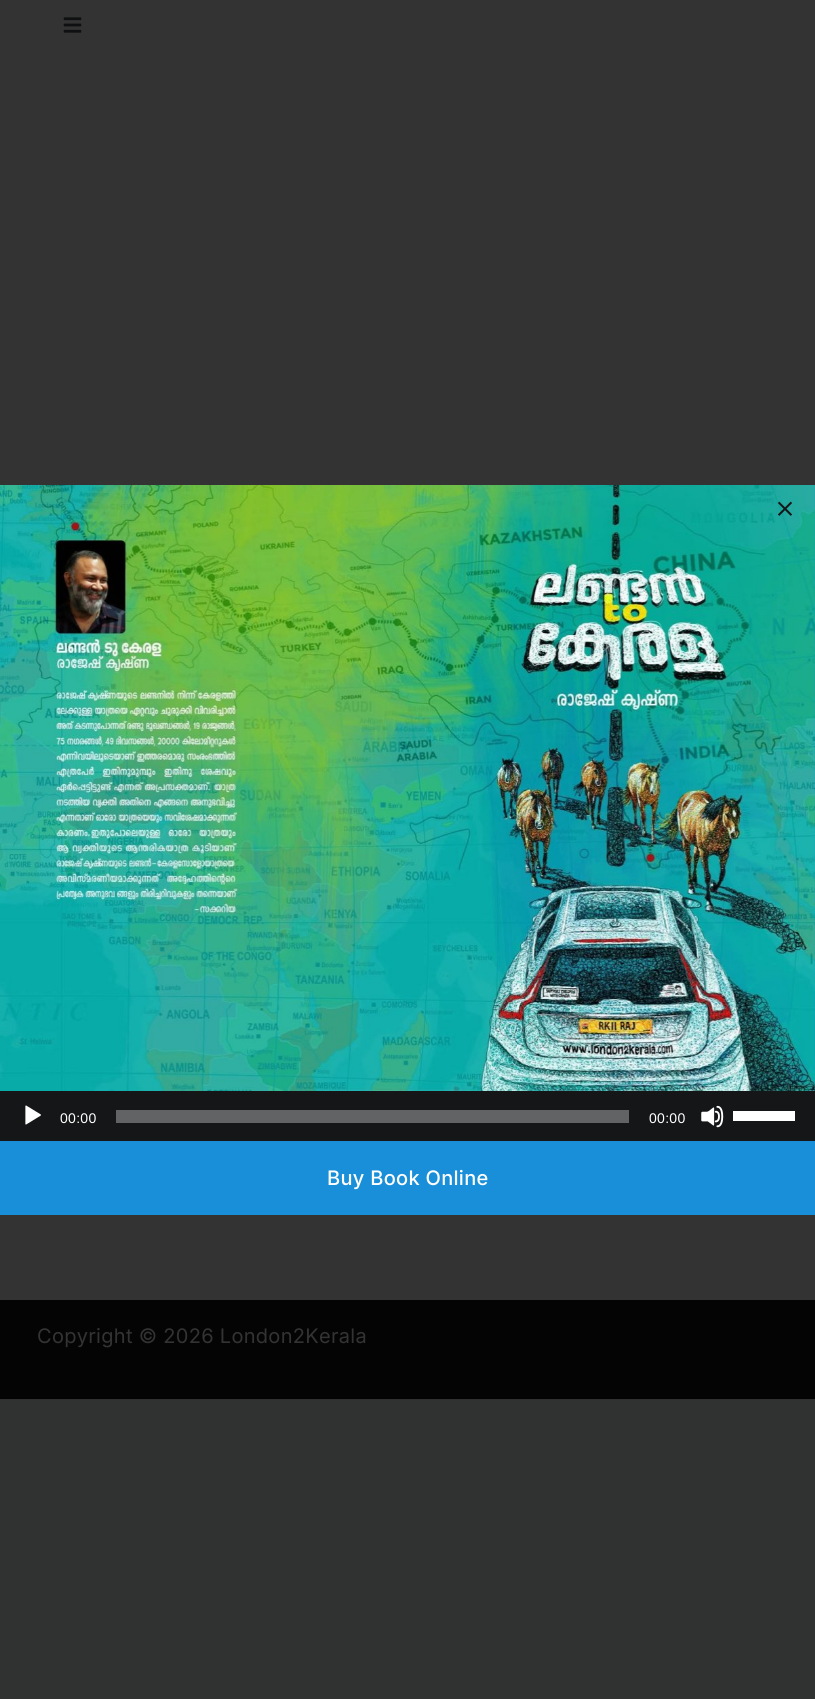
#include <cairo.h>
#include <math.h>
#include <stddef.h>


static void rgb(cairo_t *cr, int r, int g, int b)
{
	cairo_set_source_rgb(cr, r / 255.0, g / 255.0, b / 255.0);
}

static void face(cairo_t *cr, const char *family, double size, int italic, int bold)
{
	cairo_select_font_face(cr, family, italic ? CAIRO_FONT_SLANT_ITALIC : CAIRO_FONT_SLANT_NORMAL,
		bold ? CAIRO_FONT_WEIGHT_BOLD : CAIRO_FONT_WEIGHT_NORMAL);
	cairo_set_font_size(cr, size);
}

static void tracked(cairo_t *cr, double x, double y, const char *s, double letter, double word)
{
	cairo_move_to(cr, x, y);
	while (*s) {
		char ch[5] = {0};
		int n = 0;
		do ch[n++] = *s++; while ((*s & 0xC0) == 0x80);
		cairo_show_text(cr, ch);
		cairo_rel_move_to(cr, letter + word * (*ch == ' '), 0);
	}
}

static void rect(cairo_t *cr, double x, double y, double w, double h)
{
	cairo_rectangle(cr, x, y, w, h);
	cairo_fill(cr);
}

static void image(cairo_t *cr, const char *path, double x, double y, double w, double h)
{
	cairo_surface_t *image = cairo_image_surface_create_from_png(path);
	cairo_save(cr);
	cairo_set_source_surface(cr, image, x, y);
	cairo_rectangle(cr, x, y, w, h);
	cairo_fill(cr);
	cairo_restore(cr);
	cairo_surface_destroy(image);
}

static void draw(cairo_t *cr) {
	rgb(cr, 48, 49, 49);
	cairo_paint(cr);
	rgb(cr, 51, 51, 51);
	rect(cr, 0, 0, 815, 1300);
	rgb(cr, 25, 143, 217);
	rect(cr, 0, 485, 815, 730);
	image(cr, "image1.png", 0, 485, 815, 606);
	image(cr, "image0.png", 778, 501, 14, 15);
	rgb(cr, 20, 22, 23);
	rect(cr, 0, 1091, 815, 50);
	image(cr, "image2.png", 25, 1105, 16, 20);
	face(cr, "Liberation Sans", 14, 0, 0);
	rgb(cr, 255, 255, 255);
	tracked(cr, 60, 1123, "00:00", 0.3, 0);
	rgb(cr, 98, 99, 100);
	rect(cr, 116, 1110, 513, 13);
	rgb(cr, 255, 255, 255);
	tracked(cr, 649, 1123, "00:00", 0.3, 0);
	image(cr, "image3.png", 701, 1105, 23, 23);
	rect(cr, 733, 1111, 62, 10);
	face(cr, "Inter Medium", 20, 0, 0);
	tracked(cr, 327, 1185, "Buy Book Online", 0.3, 0);
	image(cr, "image4.png", 63, 17, 19, 16);
	rgb(cr, 4, 4, 5);
	rect(cr, 0, 1300, 815, 99);
	face(cr, "Inter", 20, 0, 0);
	rgb(cr, 51, 51, 51);
	tracked(cr, 37, 1343, "Copyright © 2026 London2Kerala", 0.3, 0);
}

int main(void) {
	cairo_surface_t *surface = cairo_image_surface_create(CAIRO_FORMAT_RGB24, 815, 1699);
	cairo_t *cr = cairo_create(surface);
	cairo_font_options_t *options = cairo_font_options_create();
	cairo_font_options_set_hint_metrics(options, CAIRO_HINT_METRICS_OFF);
	cairo_font_options_set_hint_style(options, CAIRO_HINT_STYLE_NONE);
	cairo_set_font_options(cr, options);
	cairo_set_miter_limit(cr, 4);
	draw(cr);
	cairo_surface_write_to_png(surface, "render.png");
	cairo_font_options_destroy(options);
	cairo_destroy(cr);
	cairo_surface_destroy(surface);
	return 0;
}
